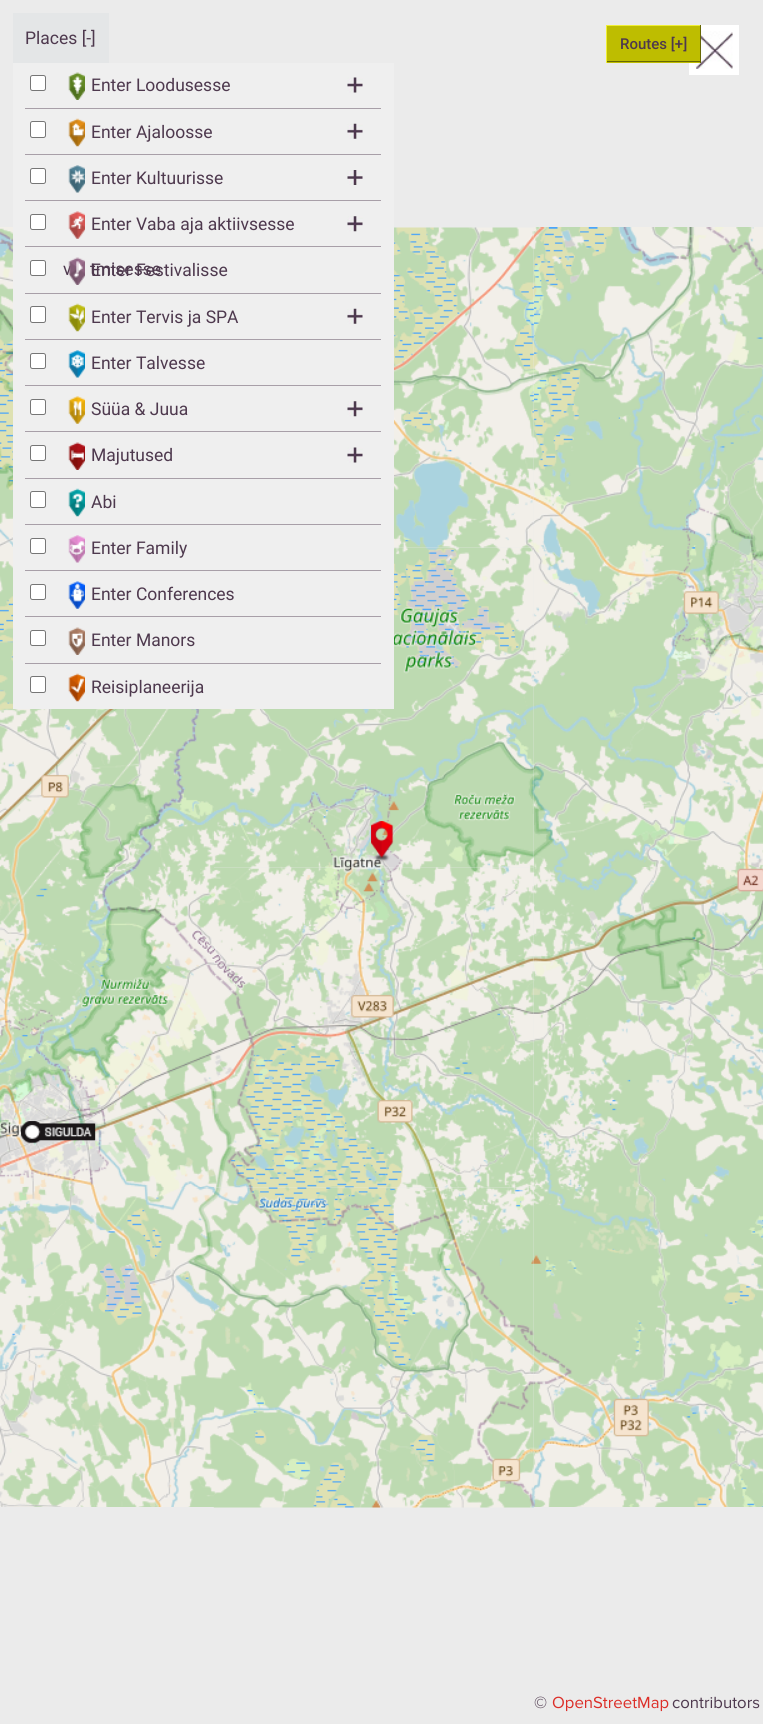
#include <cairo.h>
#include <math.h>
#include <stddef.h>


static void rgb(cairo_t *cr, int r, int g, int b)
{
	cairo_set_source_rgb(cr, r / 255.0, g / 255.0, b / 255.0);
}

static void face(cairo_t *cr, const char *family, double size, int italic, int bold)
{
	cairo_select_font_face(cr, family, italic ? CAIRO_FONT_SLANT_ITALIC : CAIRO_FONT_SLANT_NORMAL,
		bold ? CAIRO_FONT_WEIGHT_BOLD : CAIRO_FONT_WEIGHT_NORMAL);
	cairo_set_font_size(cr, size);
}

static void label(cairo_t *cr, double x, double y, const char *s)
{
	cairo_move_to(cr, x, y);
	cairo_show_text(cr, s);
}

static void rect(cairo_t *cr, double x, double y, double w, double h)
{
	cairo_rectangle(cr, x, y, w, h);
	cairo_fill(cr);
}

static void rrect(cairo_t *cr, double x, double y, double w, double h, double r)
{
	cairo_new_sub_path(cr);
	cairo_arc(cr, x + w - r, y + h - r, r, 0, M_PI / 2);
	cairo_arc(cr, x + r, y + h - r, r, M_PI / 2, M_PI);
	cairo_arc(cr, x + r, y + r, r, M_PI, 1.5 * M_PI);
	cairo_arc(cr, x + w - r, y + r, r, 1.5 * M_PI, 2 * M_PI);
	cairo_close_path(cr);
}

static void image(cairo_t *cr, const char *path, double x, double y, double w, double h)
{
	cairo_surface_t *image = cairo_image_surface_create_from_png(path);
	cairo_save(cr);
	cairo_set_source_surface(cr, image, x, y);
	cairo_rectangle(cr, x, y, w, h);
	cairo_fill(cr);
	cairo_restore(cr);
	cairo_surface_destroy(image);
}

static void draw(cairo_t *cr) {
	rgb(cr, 235, 235, 235);
	cairo_paint(cr);
	rgb(cr, 228, 230, 231);
	rect(cr, 13, 13, 96, 50);
	face(cr, "Roboto", 17.5, 0, 0);
	rgb(cr, 78, 57, 78);
	label(cr, 25, 44, "Places [-]");
	image(cr, "image22.png", 0, 547, 214, 320);
	image(cr, "image23.png", 214, 547, 320, 321);
	rgb(cr, 239, 239, 239);
	rect(cr, 13, 63, 381, 646);
	rgb(cr, 168, 159, 168);
	rect(cr, 25, 108, 356, 1);
	rgb(cr, 255, 255, 255);
	rrect(cr, 30.5, 75.5, 15, 15, 2);
	cairo_fill_preserve(cr);
	rgb(cr, 118, 118, 118);
	cairo_set_line_width(cr, 1);
	cairo_stroke(cr);
	image(cr, "image0.png", 68, 72, 17, 28);
	rgb(cr, 78, 57, 78);
	label(cr, 91, 91, "Enter Loodusesse");
	image(cr, "image1.png", 347, 77, 16, 16);
	rgb(cr, 168, 159, 168);
	rect(cr, 25, 154, 356, 1);
	rgb(cr, 255, 255, 255);
	rrect(cr, 30.5, 121.5, 15, 16, 2);
	cairo_fill_preserve(cr);
	rgb(cr, 118, 118, 118);
	cairo_stroke(cr);
	image(cr, "image2.png", 68, 118, 17, 29);
	rgb(cr, 78, 57, 78);
	label(cr, 91, 138, "Enter Ajaloosse");
	image(cr, "image3.png", 347, 123, 16, 16);
	rgb(cr, 168, 159, 168);
	rect(cr, 25, 200, 356, 1);
	rgb(cr, 255, 255, 255);
	rrect(cr, 30.5, 168.5, 15, 15, 2);
	cairo_fill_preserve(cr);
	rgb(cr, 118, 118, 118);
	cairo_stroke(cr);
	image(cr, "image4.png", 68, 165, 17, 28);
	rgb(cr, 78, 57, 78);
	label(cr, 91, 184, "Enter Kultuurisse");
	image(cr, "image5.png", 347, 170, 16, 15);
	rgb(cr, 168, 159, 168);
	rect(cr, 25, 246, 356, 1);
	rgb(cr, 255, 255, 255);
	rrect(cr, 30.5, 214.5, 15, 15, 2);
	cairo_fill_preserve(cr);
	rgb(cr, 118, 118, 118);
	cairo_stroke(cr);
	image(cr, "image6.png", 68, 211, 17, 28);
	rgb(cr, 78, 57, 78);
	label(cr, 91, 230, "Enter Vaba aja aktiivsesse");
	image(cr, "image7.png", 347, 216, 16, 16);
	label(cr, 63, 275, "v");
	label(cr, 90, 275, "tmisesse");
	rgb(cr, 168, 159, 168);
	rect(cr, 25, 293, 356, 1);
	rgb(cr, 255, 255, 255);
	rrect(cr, 30.5, 260.5, 15, 15, 2);
	cairo_fill_preserve(cr);
	rgb(cr, 118, 118, 118);
	cairo_stroke(cr);
	image(cr, "image8.png", 68, 257, 17, 28);
	rgb(cr, 78, 57, 78);
	label(cr, 91, 276, "Enter Festivalisse");
	rgb(cr, 168, 159, 168);
	rect(cr, 25, 339, 356, 1);
	rgb(cr, 255, 255, 255);
	rrect(cr, 30.5, 306.5, 15, 16, 2);
	cairo_fill_preserve(cr);
	rgb(cr, 118, 118, 118);
	cairo_stroke(cr);
	image(cr, "image9.png", 68, 303, 17, 29);
	rgb(cr, 78, 57, 78);
	label(cr, 91, 323, "Enter Tervis ja SPA");
	image(cr, "image3.png", 347, 308, 16, 16);
	rgb(cr, 168, 159, 168);
	rect(cr, 25, 385, 356, 1);
	rgb(cr, 255, 255, 255);
	rrect(cr, 30.5, 353.5, 15, 15, 2);
	cairo_fill_preserve(cr);
	rgb(cr, 118, 118, 118);
	cairo_stroke(cr);
	image(cr, "image10.png", 68, 350, 17, 28);
	rgb(cr, 78, 57, 78);
	label(cr, 91, 369, "Enter Talvesse");
	rgb(cr, 168, 159, 168);
	rect(cr, 25, 431, 356, 1);
	rgb(cr, 255, 255, 255);
	rrect(cr, 30.5, 399.5, 15, 15, 2);
	cairo_fill_preserve(cr);
	rgb(cr, 118, 118, 118);
	cairo_stroke(cr);
	image(cr, "image11.png", 68, 396, 17, 28);
	rgb(cr, 78, 57, 78);
	label(cr, 91, 415, "Süüa & Juua");
	image(cr, "image7.png", 347, 401, 16, 16);
	rgb(cr, 168, 159, 168);
	rect(cr, 25, 478, 356, 1);
	rgb(cr, 255, 255, 255);
	rrect(cr, 30.5, 445.5, 15, 15, 2);
	cairo_fill_preserve(cr);
	rgb(cr, 118, 118, 118);
	cairo_stroke(cr);
	image(cr, "image12.png", 68, 442, 17, 28);
	rgb(cr, 78, 57, 78);
	label(cr, 91, 461, "Majutused");
	image(cr, "image1.png", 347, 447, 16, 16);
	rgb(cr, 168, 159, 168);
	rect(cr, 25, 524, 356, 1);
	rgb(cr, 255, 255, 255);
	rrect(cr, 30.5, 491.5, 15, 16, 2);
	cairo_fill_preserve(cr);
	rgb(cr, 118, 118, 118);
	cairo_stroke(cr);
	image(cr, "image13.png", 68, 488, 17, 29);
	rgb(cr, 78, 57, 78);
	label(cr, 91, 508, "Abi");
	rgb(cr, 168, 159, 168);
	rect(cr, 25, 570, 356, 1);
	rgb(cr, 255, 255, 255);
	rrect(cr, 30.5, 538.5, 15, 15, 2);
	cairo_fill_preserve(cr);
	rgb(cr, 118, 118, 118);
	cairo_stroke(cr);
	image(cr, "image14.png", 68, 535, 17, 28);
	rgb(cr, 78, 57, 78);
	label(cr, 91, 554, "Enter Family");
	rgb(cr, 168, 159, 168);
	rect(cr, 25, 616, 356, 1);
	rgb(cr, 255, 255, 255);
	rrect(cr, 30.5, 584.5, 15, 15, 2);
	cairo_fill_preserve(cr);
	rgb(cr, 118, 118, 118);
	cairo_stroke(cr);
	image(cr, "image15.png", 68, 581, 17, 28);
	rgb(cr, 78, 57, 78);
	label(cr, 91, 600, "Enter Conferences");
	rgb(cr, 168, 159, 168);
	rect(cr, 25, 663, 356, 1);
	rgb(cr, 255, 255, 255);
	rrect(cr, 30.5, 630.5, 15, 15, 2);
	cairo_fill_preserve(cr);
	rgb(cr, 118, 118, 118);
	cairo_stroke(cr);
	image(cr, "image16.png", 68, 627, 17, 28);
	rgb(cr, 78, 57, 78);
	label(cr, 91, 646, "Enter Manors");
	rgb(cr, 255, 255, 255);
	rrect(cr, 30.5, 676.5, 15, 16, 2);
	cairo_fill_preserve(cr);
	rgb(cr, 118, 118, 118);
	cairo_stroke(cr);
	image(cr, "image17.png", 68, 673, 17, 29);
	rgb(cr, 78, 57, 78);
	label(cr, 91, 693, "Reisiplaneerija");
	rgb(cr, 255, 255, 255);
	rect(cr, 689, 25, 50, 50);
	image(cr, "image18.png", 695, 31, 38, 38);
	rgb(cr, 190, 189, 0);
	rect(cr, 607, 26, 93, 37);
	rgb(cr, 240, 239, 53);
	rect(cr, 606, 25, 95, 1);
	rgb(cr, 102, 103, 3);
	rect(cr, 700, 25, 1, 38);
	rect(cr, 606, 61, 95, 1);
	rgb(cr, 240, 239, 53);
	rect(cr, 606, 25, 1, 38);
	face(cr, "Roboto Medium", 15, 0, 0);
	rgb(cr, 78, 57, 78);
	label(cr, 620, 49, "Routes [+]");
	image(cr, "image19.png", 0, 227, 13, 320);
	image(cr, "image20.png", 394, 227, 140, 321);
	image(cr, "image21.png", 534, 227, 229, 320);
	image(cr, "image24.png", 534, 547, 229, 320);
	image(cr, "image25.png", 0, 867, 214, 320);
	image(cr, "image26.png", 214, 867, 320, 321);
	image(cr, "image27.png", 534, 867, 229, 320);
	image(cr, "image29.png", 213, 1187, 321, 321);
	image(cr, "image28.png", 0, 1187, 214, 320);
	image(cr, "image30.png", 534, 1187, 229, 320);
	image(cr, "image31.png", 21, 821, 372, 322);
	face(cr, "Proxima Nova", 16.75, 0, 0);
	label(cr, 534, 1708, "©");
	rgb(cr, 220, 46, 40);
	label(cr, 552, 1708, "OpenStreetMap");
	rgb(cr, 78, 57, 78);
	label(cr, 672, 1708, "contributors");
}

int main(void) {
	cairo_surface_t *surface = cairo_image_surface_create(CAIRO_FORMAT_RGB24, 763, 1724);
	cairo_t *cr = cairo_create(surface);
	cairo_font_options_t *options = cairo_font_options_create();
	cairo_font_options_set_hint_metrics(options, CAIRO_HINT_METRICS_OFF);
	cairo_font_options_set_hint_style(options, CAIRO_HINT_STYLE_NONE);
	cairo_set_font_options(cr, options);
	cairo_set_miter_limit(cr, 4);
	draw(cr);
	cairo_surface_write_to_png(surface, "render.png");
	cairo_font_options_destroy(options);
	cairo_destroy(cr);
	cairo_surface_destroy(surface);
	return 0;
}
